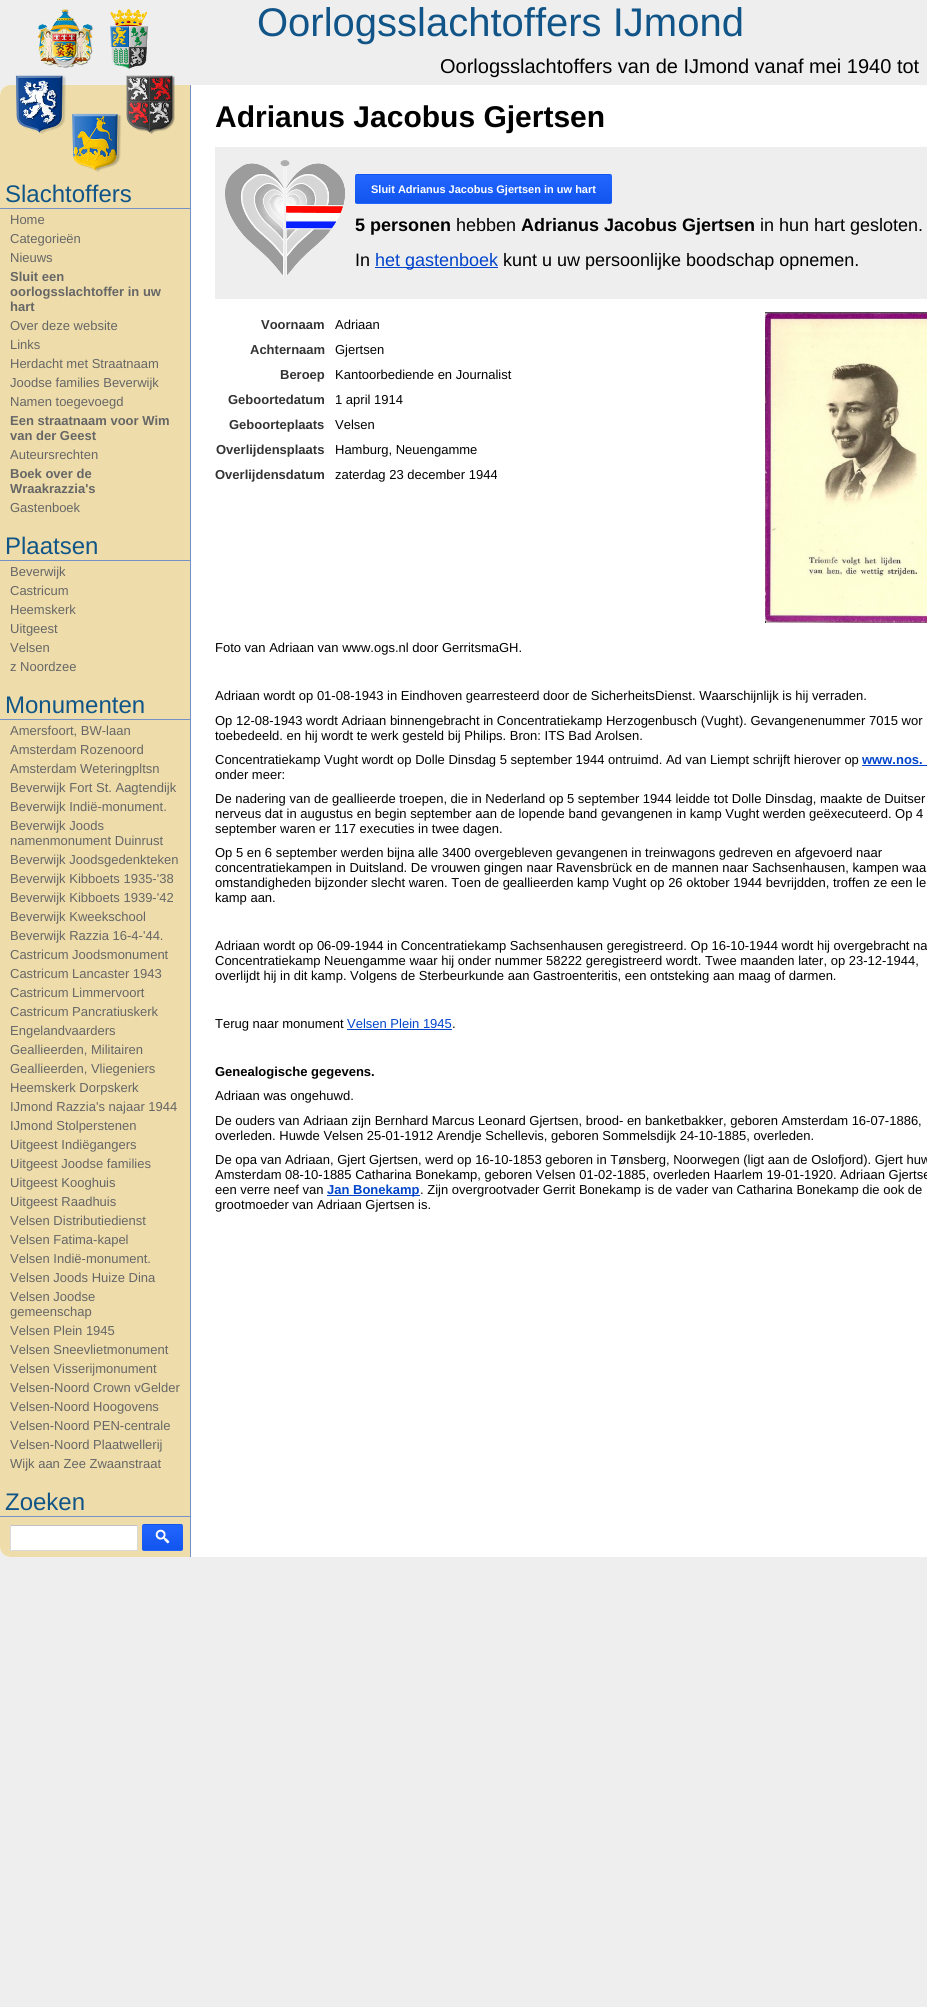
#include <cairo.h>
#include <math.h>
#include <stddef.h>


static void rgb(cairo_t *cr, int r, int g, int b)
{
	cairo_set_source_rgb(cr, r / 255.0, g / 255.0, b / 255.0);
}

static void face(cairo_t *cr, const char *family, double size, int italic, int bold)
{
	cairo_select_font_face(cr, family, italic ? CAIRO_FONT_SLANT_ITALIC : CAIRO_FONT_SLANT_NORMAL,
		bold ? CAIRO_FONT_WEIGHT_BOLD : CAIRO_FONT_WEIGHT_NORMAL);
	cairo_set_font_size(cr, size);
}

static void label(cairo_t *cr, double x, double y, const char *s)
{
	cairo_move_to(cr, x, y);
	cairo_show_text(cr, s);
}

static void rect(cairo_t *cr, double x, double y, double w, double h)
{
	cairo_rectangle(cr, x, y, w, h);
	cairo_fill(cr);
}

static void rrect(cairo_t *cr, double x, double y, double w, double h, double r)
{
	cairo_new_sub_path(cr);
	cairo_arc(cr, x + w - r, y + h - r, r, 0, M_PI / 2);
	cairo_arc(cr, x + r, y + h - r, r, M_PI / 2, M_PI);
	cairo_arc(cr, x + r, y + r, r, M_PI, 1.5 * M_PI);
	cairo_arc(cr, x + w - r, y + r, r, 1.5 * M_PI, 2 * M_PI);
	cairo_close_path(cr);
}

static void image(cairo_t *cr, const char *path, double x, double y, double w, double h)
{
	cairo_surface_t *image = cairo_image_surface_create_from_png(path);
	cairo_save(cr);
	cairo_set_source_surface(cr, image, x, y);
	cairo_rectangle(cr, x, y, w, h);
	cairo_fill(cr);
	cairo_restore(cr);
	cairo_surface_destroy(image);
}

static void draw(cairo_t *cr) {
	cairo_pattern_t *gradient;
	rgb(cr, 238, 238, 238);
	cairo_paint(cr);
	face(cr, "Liberation Sans", 40, 0, 0);
	rgb(cr, 17, 85, 136);
	label(cr, 257, 36, "Oorlogsslachtoffers IJmond");
	face(cr, "Liberation Sans", 20, 0, 0);
	rgb(cr, 0, 0, 0);
	label(cr, 440, 73, "Oorlogsslachtoffers van de IJmond vanaf mei 1940 tot");
	rgb(cr, 255, 255, 255);
	rrect(cr, 0, 85, 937, 1472, 10);
	cairo_fill(cr);
	image(cr, "image0.png", 0, 85, 191, 1472);
	image(cr, "image1.png", 15, 9, 160, 163);
	rgb(cr, 118, 145, 198);
	rect(cr, 0, 208, 190, 1);
	face(cr, "Liberation Sans", 24, 0, 0);
	rgb(cr, 17, 85, 136);
	label(cr, 5, 202, "Slachtoffers");
	face(cr, "Liberation Sans", 13, 0, 0);
	rgb(cr, 102, 102, 102);
	label(cr, 10, 224, "Home");
	label(cr, 10, 243, "Categorieën");
	label(cr, 10, 262, "Nieuws");
	face(cr, "Liberation Sans", 13, 0, 1);
	label(cr, 10, 281, "Sluit een");
	label(cr, 10, 296, "oorlogsslachtoffer in uw");
	label(cr, 10, 311, "hart");
	face(cr, "Liberation Sans", 13, 0, 0);
	label(cr, 10, 330, "Over deze website");
	label(cr, 10, 349, "Links");
	label(cr, 10, 368, "Herdacht met Straatnaam");
	label(cr, 10, 387, "Joodse families Beverwijk");
	label(cr, 10, 406, "Namen toegevoegd");
	face(cr, "Liberation Sans", 13, 0, 1);
	label(cr, 10, 425, "Een straatnaam voor Wim");
	label(cr, 10, 440, "van der Geest");
	face(cr, "Liberation Sans", 13, 0, 0);
	label(cr, 10, 459, "Auteursrechten");
	face(cr, "Liberation Sans", 13, 0, 1);
	label(cr, 10, 478, "Boek over de");
	label(cr, 10, 493, "Wraakrazzia's");
	face(cr, "Liberation Sans", 13, 0, 0);
	label(cr, 10, 512, "Gastenboek");
	rgb(cr, 118, 145, 198);
	rect(cr, 0, 560, 190, 1);
	face(cr, "Liberation Sans", 24, 0, 0);
	rgb(cr, 17, 85, 136);
	label(cr, 5, 554, "Plaatsen");
	face(cr, "Liberation Sans", 13, 0, 0);
	rgb(cr, 102, 102, 102);
	label(cr, 10, 576, "Beverwijk");
	label(cr, 10, 595, "Castricum");
	label(cr, 10, 614, "Heemskerk");
	label(cr, 10, 633, "Uitgeest");
	label(cr, 10, 652, "Velsen");
	label(cr, 10, 671, "z Noordzee");
	rgb(cr, 118, 145, 198);
	rect(cr, 0, 719, 190, 1);
	face(cr, "Liberation Sans", 24, 0, 0);
	rgb(cr, 17, 85, 136);
	label(cr, 5, 713, "Monumenten");
	face(cr, "Liberation Sans", 13, 0, 0);
	rgb(cr, 102, 102, 102);
	label(cr, 10, 735, "Amersfoort, BW-laan");
	label(cr, 10, 754, "Amsterdam Rozenoord");
	label(cr, 10, 773, "Amsterdam Weteringpltsn");
	label(cr, 10, 792, "Beverwijk Fort St. Aagtendijk");
	label(cr, 10, 811, "Beverwijk Indië-monument.");
	label(cr, 10, 830, "Beverwijk Joods");
	label(cr, 10, 845, "namenmonument Duinrust");
	label(cr, 10, 864, "Beverwijk Joodsgedenkteken");
	label(cr, 10, 883, "Beverwijk Kibboets 1935-'38");
	label(cr, 10, 902, "Beverwijk Kibboets 1939-'42");
	label(cr, 10, 921, "Beverwijk Kweekschool");
	label(cr, 10, 940, "Beverwijk Razzia 16-4-'44.");
	label(cr, 10, 959, "Castricum Joodsmonument");
	label(cr, 10, 978, "Castricum Lancaster 1943");
	label(cr, 10, 997, "Castricum Limmervoort");
	label(cr, 10, 1016, "Castricum Pancratiuskerk");
	label(cr, 10, 1035, "Engelandvaarders");
	label(cr, 10, 1054, "Geallieerden, Militairen");
	label(cr, 10, 1073, "Geallieerden, Vliegeniers");
	label(cr, 10, 1092, "Heemskerk Dorpskerk");
	label(cr, 10, 1111, "IJmond Razzia's najaar 1944");
	label(cr, 10, 1130, "IJmond Stolperstenen");
	label(cr, 10, 1149, "Uitgeest Indiëgangers");
	label(cr, 10, 1168, "Uitgeest Joodse families");
	label(cr, 10, 1187, "Uitgeest Kooghuis");
	label(cr, 10, 1206, "Uitgeest Raadhuis");
	label(cr, 10, 1225, "Velsen Distributiedienst");
	label(cr, 10, 1244, "Velsen Fatima-kapel");
	label(cr, 10, 1263, "Velsen Indië-monument.");
	label(cr, 10, 1282, "Velsen Joods Huize Dina");
	label(cr, 10, 1301, "Velsen Joodse");
	label(cr, 10, 1316, "gemeenschap");
	label(cr, 10, 1335, "Velsen Plein 1945");
	label(cr, 10, 1354, "Velsen Sneevlietmonument");
	label(cr, 10, 1373, "Velsen Visserijmonument");
	label(cr, 10, 1392, "Velsen-Noord Crown vGelder");
	label(cr, 10, 1411, "Velsen-Noord Hoogovens");
	label(cr, 10, 1430, "Velsen-Noord PEN-centrale");
	label(cr, 10, 1449, "Velsen-Noord Plaatwellerij");
	label(cr, 10, 1468, "Wijk aan Zee Zwaanstraat");
	rgb(cr, 118, 145, 198);
	rect(cr, 0, 1516, 190, 1);
	face(cr, "Liberation Sans", 24, 0, 0);
	rgb(cr, 17, 85, 136);
	label(cr, 5, 1510, "Zoeken");
	rgb(cr, 255, 255, 255);
	rect(cr, 11, 1526, 126, 24);
	rgb(cr, 192, 192, 192);
	rect(cr, 10, 1525, 128, 1);
	rgb(cr, 217, 217, 217);
	rect(cr, 137, 1525, 1, 26);
	rect(cr, 10, 1550, 128, 1);
	rect(cr, 10, 1525, 1, 26);
	cairo_save(cr);
	rrect(cr, 142, 1524, 41, 27, 2);
	cairo_clip(cr);
	gradient = cairo_pattern_create_linear(163, 1500, 163, 1525);
	cairo_pattern_add_color_stop_rgba(gradient, 0, 0.133, 0.4, 1, 1);
	cairo_pattern_add_color_stop_rgba(gradient, 1, 0.067, 0.333, 0.933, 1);
	cairo_set_source(cr, gradient);
	cairo_pattern_destroy(gradient);
	rect(cr, 142, 1524, 41, 1);
	gradient = cairo_pattern_create_linear(163, 1525, 163, 1550);
	cairo_pattern_add_color_stop_rgba(gradient, 0, 0.133, 0.4, 1, 1);
	cairo_pattern_add_color_stop_rgba(gradient, 1, 0.067, 0.333, 0.933, 1);
	cairo_set_source(cr, gradient);
	cairo_pattern_destroy(gradient);
	rect(cr, 142, 1525, 41, 25);
	gradient = cairo_pattern_create_linear(163, 1550, 163, 1575);
	cairo_pattern_add_color_stop_rgba(gradient, 0, 0.133, 0.4, 1, 1);
	cairo_pattern_add_color_stop_rgba(gradient, 1, 0.067, 0.333, 0.933, 1);
	cairo_set_source(cr, gradient);
	cairo_pattern_destroy(gradient);
	rect(cr, 142, 1550, 41, 1);
	cairo_restore(cr);
	image(cr, "image2.png", 155, 1529, 15, 15);
	face(cr, "Liberation Sans", 30, 0, 1);
	rgb(cr, 0, 0, 0);
	label(cr, 215, 127, "Adrianus Jacobus Gjertsen");
	rgb(cr, 238, 238, 238);
	rect(cr, 215, 147, 712, 152);
	image(cr, "image3.png", 225, 160, 120, 117);
	cairo_save(cr);
	rrect(cr, 355, 174, 257, 30, 2);
	cairo_clip(cr);
	gradient = cairo_pattern_create_linear(484, 147, 484, 175);
	cairo_pattern_add_color_stop_rgba(gradient, 0, 0.133, 0.4, 1, 1);
	cairo_pattern_add_color_stop_rgba(gradient, 1, 0.067, 0.333, 0.933, 1);
	cairo_set_source(cr, gradient);
	cairo_pattern_destroy(gradient);
	rect(cr, 355, 174, 257, 1);
	gradient = cairo_pattern_create_linear(484, 175, 484, 203);
	cairo_pattern_add_color_stop_rgba(gradient, 0, 0.133, 0.4, 1, 1);
	cairo_pattern_add_color_stop_rgba(gradient, 1, 0.067, 0.333, 0.933, 1);
	cairo_set_source(cr, gradient);
	cairo_pattern_destroy(gradient);
	rect(cr, 355, 175, 257, 28);
	gradient = cairo_pattern_create_linear(484, 203, 484, 231);
	cairo_pattern_add_color_stop_rgba(gradient, 0, 0.133, 0.4, 1, 1);
	cairo_pattern_add_color_stop_rgba(gradient, 1, 0.067, 0.333, 0.933, 1);
	cairo_set_source(cr, gradient);
	cairo_pattern_destroy(gradient);
	rect(cr, 355, 203, 257, 1);
	cairo_restore(cr);
	face(cr, "Liberation Sans", 11, 0, 1);
	rgb(cr, 255, 255, 255);
	label(cr, 371, 193, "Sluit Adrianus Jacobus Gjertsen in uw hart");
	face(cr, "Liberation Sans", 18, 0, 1);
	rgb(cr, 0, 0, 0);
	label(cr, 355, 231, "5 personen");
	face(cr, "Liberation Sans", 18, 0, 0);
	label(cr, 456, 231, "hebben");
	face(cr, "Liberation Sans", 18, 0, 1);
	label(cr, 521, 231, "Adrianus Jacobus Gjertsen");
	face(cr, "Liberation Sans", 18, 0, 0);
	label(cr, 760, 231, "in hun hart gesloten.");
	label(cr, 355, 266, "In");
	rgb(cr, 0, 68, 204);
	rect(cr, 375, 267, 123, 1);
	label(cr, 375, 266, "het gastenboek");
	rgb(cr, 0, 0, 0);
	label(cr, 503, 266, "kunt u uw persoonlijke boodschap opnemen.");
	face(cr, "Liberation Sans", 13, 0, 1);
	rgb(cr, 51, 51, 51);
	label(cr, 261, 329, "Voornaam");
	face(cr, "Liberation Sans", 13, 0, 0);
	rgb(cr, 0, 0, 0);
	label(cr, 335, 329, "Adriaan");
	face(cr, "Liberation Sans", 13, 0, 1);
	rgb(cr, 51, 51, 51);
	label(cr, 250, 354, "Achternaam");
	face(cr, "Liberation Sans", 13, 0, 0);
	rgb(cr, 0, 0, 0);
	label(cr, 335, 354, "Gjertsen");
	face(cr, "Liberation Sans", 13, 0, 1);
	rgb(cr, 51, 51, 51);
	label(cr, 280, 379, "Beroep");
	face(cr, "Liberation Sans", 13, 0, 0);
	rgb(cr, 0, 0, 0);
	label(cr, 335, 379, "Kantoorbediende en Journalist");
	face(cr, "Liberation Sans", 13, 0, 1);
	rgb(cr, 51, 51, 51);
	label(cr, 228, 404, "Geboortedatum");
	face(cr, "Liberation Sans", 13, 0, 0);
	rgb(cr, 0, 0, 0);
	label(cr, 335, 404, "1 april 1914");
	face(cr, "Liberation Sans", 13, 0, 1);
	rgb(cr, 51, 51, 51);
	label(cr, 229, 429, "Geboorteplaats");
	face(cr, "Liberation Sans", 13, 0, 0);
	rgb(cr, 0, 0, 0);
	label(cr, 335, 429, "Velsen");
	face(cr, "Liberation Sans", 13, 0, 1);
	rgb(cr, 51, 51, 51);
	label(cr, 216, 454, "Overlijdensplaats");
	face(cr, "Liberation Sans", 13, 0, 0);
	rgb(cr, 0, 0, 0);
	label(cr, 335, 454, "Hamburg, Neuengamme");
	face(cr, "Liberation Sans", 13, 0, 1);
	rgb(cr, 51, 51, 51);
	label(cr, 215, 479, "Overlijdensdatum");
	face(cr, "Liberation Sans", 13, 0, 0);
	rgb(cr, 0, 0, 0);
	label(cr, 335, 479, "zaterdag 23 december 1944");
	image(cr, "image4.png", 765, 312, 162, 311);
	label(cr, 215, 652, "Foto van Adriaan van www.ogs.nl door GerritsmaGH.");
	label(cr, 215, 700, "Adriaan wordt op 01-08-1943 in Eindhoven gearresteerd door de SicherheitsDienst. Waarschijnlijk is hij verraden.");
	label(cr, 215, 725, "Op 12-08-1943 wordt Adriaan binnengebracht in Concentratiekamp Herzogenbusch (Vught). Gevangenenummer 7015 wor");
	label(cr, 215, 740, "toebedeeld. en hij wordt te werk gesteld bij Philips. Bron: ITS Bad Arolsen.");
	label(cr, 215, 764, "Concentratiekamp Vught wordt op Dolle Dinsdag 5 september 1944 ontruimd. Ad van Liempt schrijft hierover op");
	face(cr, "Liberation Sans", 13, 0, 1);
	rgb(cr, 0, 68, 204);
	label(cr, 862, 764, "www.nos.");
	rect(cr, 862, 765, 65, 1);
	face(cr, "Liberation Sans", 13, 0, 0);
	rgb(cr, 0, 0, 0);
	label(cr, 215, 779, "onder meer:");
	label(cr, 215, 803, "De nadering van de geallieerde troepen, die in Nederland op 5 september 1944 leidde tot Dolle Dinsdag, maakte de Duitser");
	label(cr, 215, 818, "nerveus dat in augustus en begin september aan de lopende band gevangenen in kamp Vught werden geëxecuteerd. Op 4");
	label(cr, 215, 833, "september waren er 117 executies in twee dagen.");
	label(cr, 215, 857, "Op 5 en 6 september werden bijna alle 3400 overgebleven gevangenen in treinwagons gedreven en afgevoerd naar");
	label(cr, 215, 872, "concentratiekampen in Duitsland. De vrouwen gingen naar Ravensbrück en de mannen naar Sachsenhausen, kampen waa");
	label(cr, 215, 887, "omstandigheden bijzonder slecht waren. Toen de geallieerden kamp Vught op 26 oktober 1944 bevrijdden, troffen ze een le");
	label(cr, 215, 902, "kamp aan.");
	label(cr, 215, 950, "Adriaan wordt op 06-09-1944 in Concentratiekamp Sachsenhausen geregistreerd. Op 16-10-1944 wordt hij overgebracht na");
	label(cr, 215, 965, "Concentratiekamp Neuengamme waar hij onder nummer 58222 geregistreerd wordt. Twee maanden later, op 23-12-1944,");
	label(cr, 215, 980, "overlijdt hij in dit kamp. Volgens de Sterbeurkunde aan Gastroenteritis, een ontsteking aan maag of darmen.");
	label(cr, 215, 1028, "Terug naar monument");
	rgb(cr, 0, 68, 204);
	label(cr, 347, 1028, "Velsen Plein 1945");
	rect(cr, 347, 1029, 105, 1);
	rgb(cr, 0, 0, 0);
	label(cr, 452, 1028, ".");
	face(cr, "Liberation Sans", 13, 0, 1);
	label(cr, 215, 1076, "Genealogische gegevens.");
	face(cr, "Liberation Sans", 13, 0, 0);
	label(cr, 215, 1100, "Adriaan was ongehuwd.");
	label(cr, 215, 1125, "De ouders van Adriaan zijn Bernhard Marcus Leonard Gjertsen, brood- en banketbakker, geboren Amsterdam 16-07-1886,");
	label(cr, 215, 1140, "overleden. Huwde Velsen 25-01-1912 Arendje Schellevis, geboren Sommelsdijk 24-10-1885, overleden.");
	label(cr, 215, 1164, "De opa van Adriaan, Gjert Gjertsen, werd op 16-10-1853 geboren in Tønsberg, Noorwegen (ligt aan de Oslofjord). Gjert huw");
	label(cr, 215, 1179, "Amsterdam 08-10-1885 Catharina Bonekamp, geboren Velsen 01-02-1885, overleden Haarlem 19-01-1920. Adriaan Gjertse");
	label(cr, 215, 1194, "een verre neef van");
	rgb(cr, 0, 68, 204);
	rect(cr, 327, 1195, 93, 1);
	face(cr, "Liberation Sans", 13, 0, 1);
	label(cr, 327, 1194, "Jan Bonekamp");
	face(cr, "Liberation Sans", 13, 0, 0);
	rgb(cr, 0, 0, 0);
	label(cr, 420, 1194, ". Zijn overgrootvader Gerrit Bonekamp is de vader van Catharina Bonekamp die ook de");
	label(cr, 215, 1209, "grootmoeder van Adriaan Gjertsen is.");
}

int main(void) {
	cairo_surface_t *surface = cairo_image_surface_create(CAIRO_FORMAT_RGB24, 927, 2007);
	cairo_t *cr = cairo_create(surface);
	cairo_font_options_t *options = cairo_font_options_create();
	cairo_font_options_set_hint_metrics(options, CAIRO_HINT_METRICS_OFF);
	cairo_font_options_set_hint_style(options, CAIRO_HINT_STYLE_NONE);
	cairo_set_font_options(cr, options);
	cairo_set_miter_limit(cr, 4);
	draw(cr);
	cairo_surface_write_to_png(surface, "render.png");
	cairo_font_options_destroy(options);
	cairo_destroy(cr);
	cairo_surface_destroy(surface);
	return 0;
}
